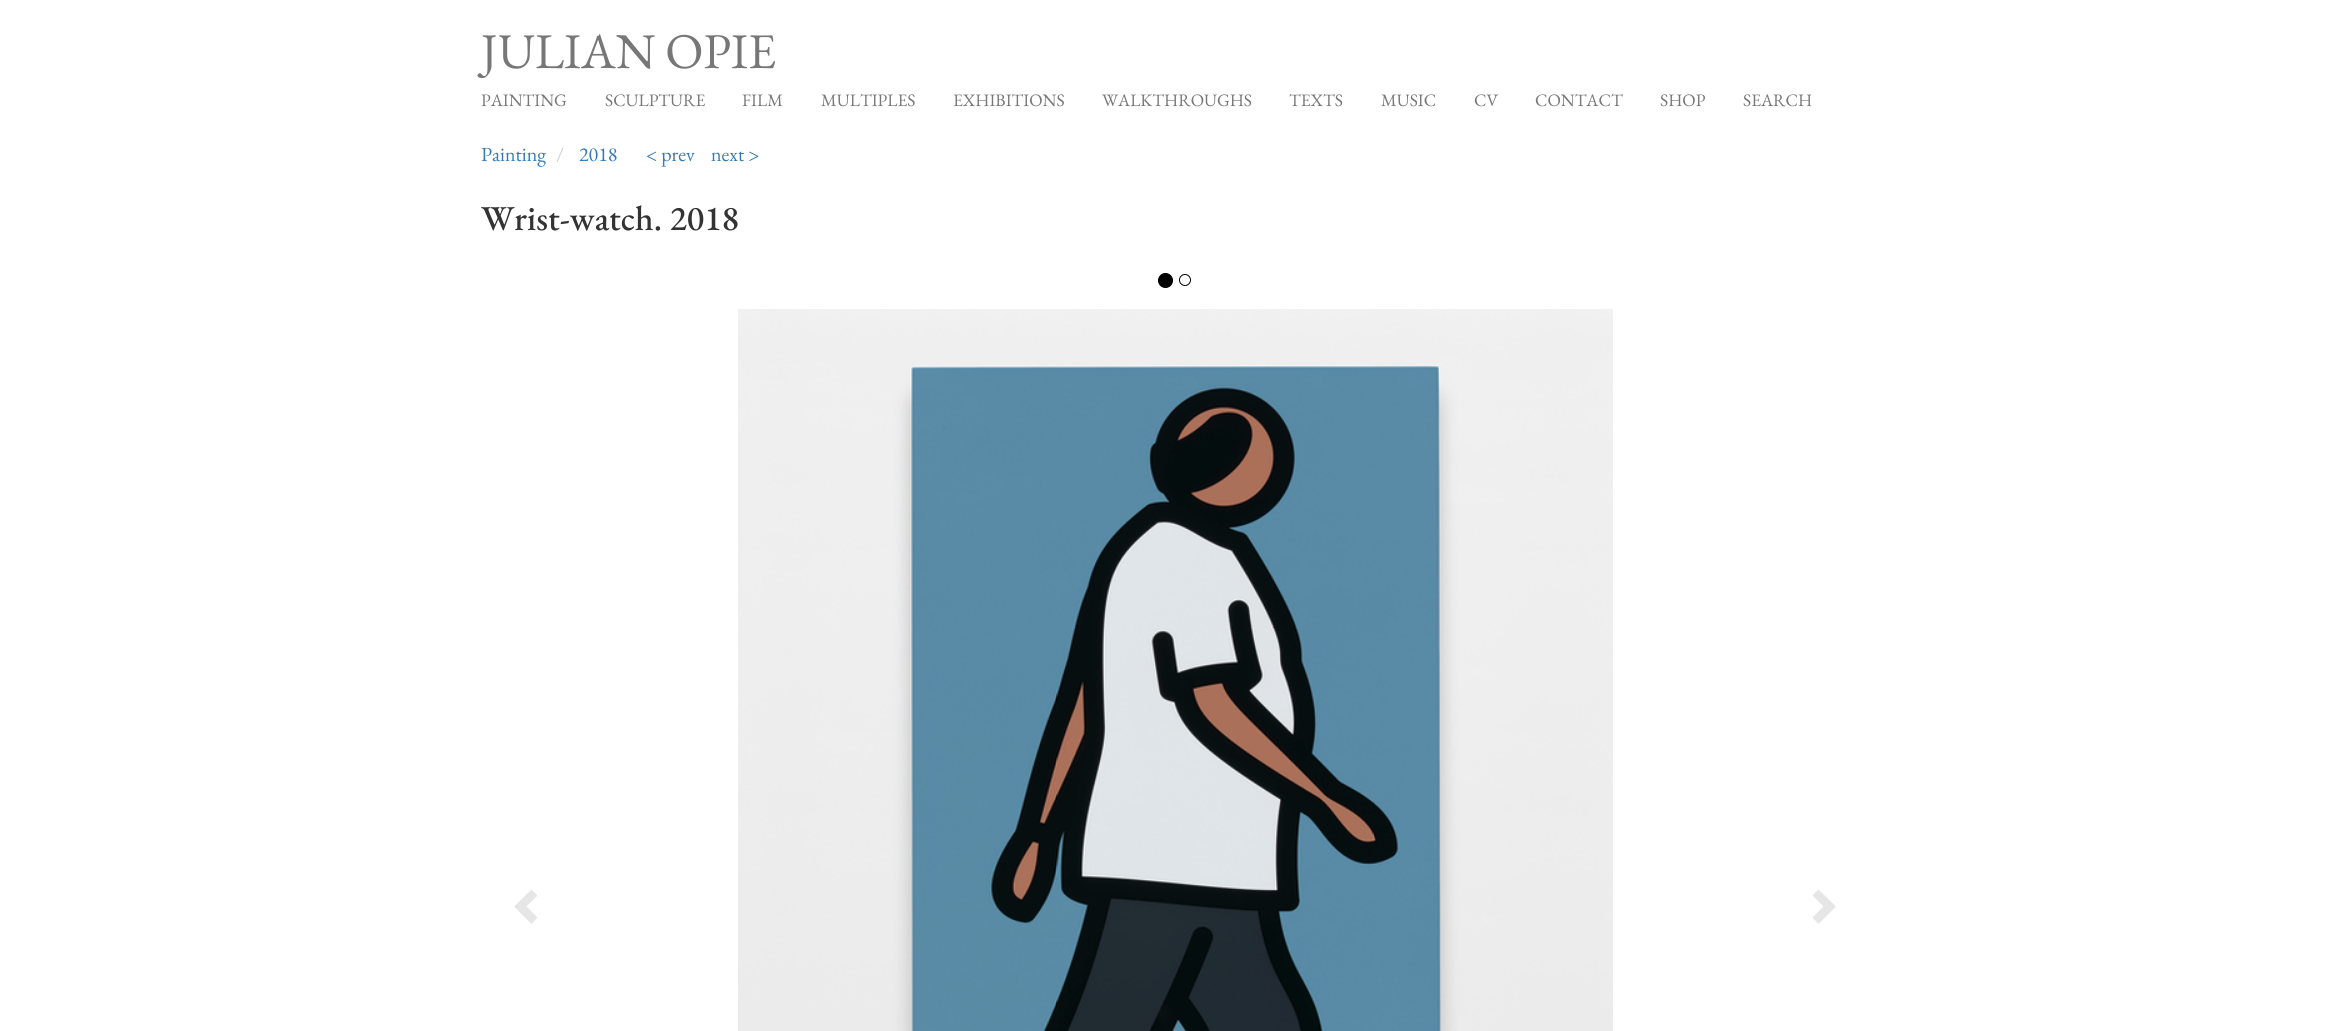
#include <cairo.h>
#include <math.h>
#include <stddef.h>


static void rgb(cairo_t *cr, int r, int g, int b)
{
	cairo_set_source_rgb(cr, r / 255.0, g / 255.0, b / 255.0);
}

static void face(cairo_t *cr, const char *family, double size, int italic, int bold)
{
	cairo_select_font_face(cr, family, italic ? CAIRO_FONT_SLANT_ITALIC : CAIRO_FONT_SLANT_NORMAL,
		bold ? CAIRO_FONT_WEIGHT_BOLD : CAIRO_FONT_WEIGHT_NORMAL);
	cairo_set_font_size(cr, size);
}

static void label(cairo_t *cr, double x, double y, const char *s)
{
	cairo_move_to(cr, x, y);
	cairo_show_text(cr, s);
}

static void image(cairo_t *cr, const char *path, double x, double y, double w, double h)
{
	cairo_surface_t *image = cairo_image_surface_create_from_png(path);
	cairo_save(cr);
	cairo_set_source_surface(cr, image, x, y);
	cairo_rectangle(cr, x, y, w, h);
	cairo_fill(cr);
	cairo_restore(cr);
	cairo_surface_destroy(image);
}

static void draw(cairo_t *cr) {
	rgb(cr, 255, 255, 255);
	cairo_paint(cr);
	face(cr, "EB Garamond", 50, 0, 0);
	rgb(cr, 119, 119, 119);
	label(cr, 481, 68, "JULIAN OPIE");
	face(cr, "EB Garamond", 17.5, 0, 0);
	label(cr, 481, 106, "PAINTING");
	label(cr, 605, 106, "SCULPTURE");
	label(cr, 742, 106, "FILM");
	label(cr, 821, 106, "MULTIPLES");
	label(cr, 953, 106, "EXHIBITIONS");
	label(cr, 1102, 106, "WALKTHROUGHS");
	label(cr, 1289, 106, "TEXTS");
	label(cr, 1381, 106, "MUSIC");
	label(cr, 1474, 106, "CV");
	label(cr, 1535, 106, "CONTACT");
	label(cr, 1660, 106, "SHOP");
	label(cr, 1743, 106, "SEARCH");
	face(cr, "EB Garamond", 20, 0, 0);
	rgb(cr, 51, 122, 183);
	label(cr, 481, 161, "Painting");
	rgb(cr, 204, 204, 204);
	label(cr, 556, 161, "/");
	rgb(cr, 51, 122, 183);
	label(cr, 579, 161, "2018");
	label(cr, 646, 161, "< prev");
	label(cr, 711, 161, "next >");
	face(cr, "EB Garamond Medium", 35, 0, 0);
	rgb(cr, 51, 51, 51);
	label(cr, 481, 230, "Wrist-watch. 2018");
	rgb(cr, 0, 0, 0);
	cairo_new_path(cr);
	cairo_arc(cr, 1165.5, 280.5, 7, 0, 2 * M_PI);
	cairo_fill_preserve(cr);
	cairo_set_line_width(cr, 1);
	cairo_stroke(cr);
	cairo_arc(cr, 1185, 280, 5.5, 0, 2 * M_PI);
	cairo_stroke(cr);
	rgb(cr, 230, 230, 230);
	cairo_new_path(cr);
	cairo_move_to(cr, 537.5, 895.5);
	cairo_line_to(cr, 526.5, 906.5);
	cairo_line_to(cr, 537.5, 917.5);
	cairo_line_to(cr, 531.5, 924);
	cairo_line_to(cr, 514, 906.5);
	cairo_line_to(cr, 531.5, 889.5);
	cairo_close_path(cr);
	cairo_fill(cr);
	image(cr, "image0.png", 738, 309, 875, 722);
	cairo_new_path(cr);
	cairo_move_to(cr, 1836, 906.5);
	cairo_line_to(cr, 1818.5, 924);
	cairo_line_to(cr, 1812.5, 917.5);
	cairo_line_to(cr, 1823.5, 906.5);
	cairo_line_to(cr, 1812.5, 895.5);
	cairo_line_to(cr, 1818.5, 889.5);
	cairo_close_path(cr);
	cairo_fill(cr);
}

int main(void) {
	cairo_surface_t *surface = cairo_image_surface_create(CAIRO_FORMAT_RGB24, 2349, 1031);
	cairo_t *cr = cairo_create(surface);
	cairo_font_options_t *options = cairo_font_options_create();
	cairo_font_options_set_hint_metrics(options, CAIRO_HINT_METRICS_OFF);
	cairo_font_options_set_hint_style(options, CAIRO_HINT_STYLE_NONE);
	cairo_set_font_options(cr, options);
	cairo_set_miter_limit(cr, 4);
	draw(cr);
	cairo_surface_write_to_png(surface, "render.png");
	cairo_font_options_destroy(options);
	cairo_destroy(cr);
	cairo_surface_destroy(surface);
	return 0;
}
